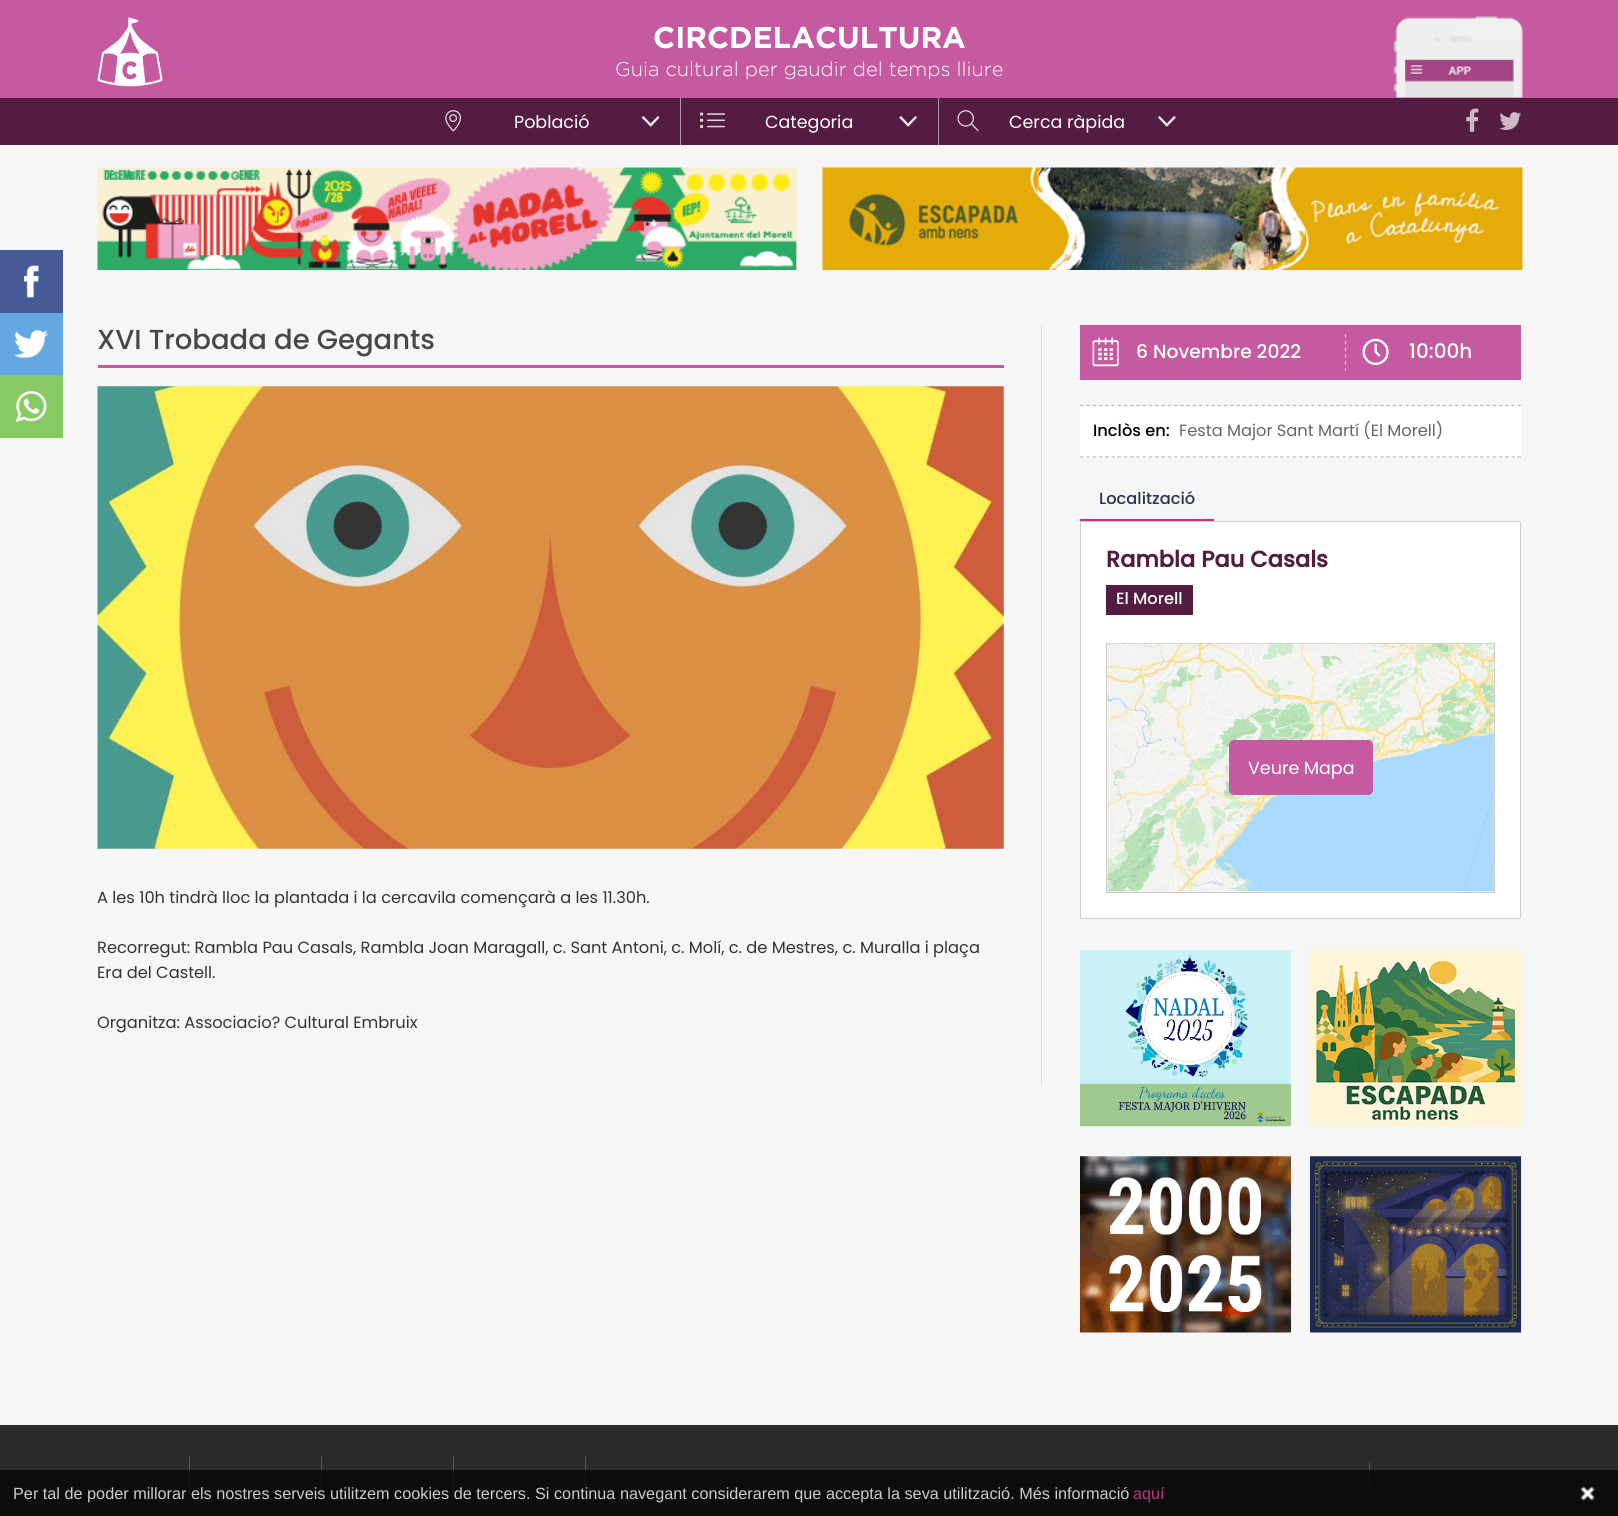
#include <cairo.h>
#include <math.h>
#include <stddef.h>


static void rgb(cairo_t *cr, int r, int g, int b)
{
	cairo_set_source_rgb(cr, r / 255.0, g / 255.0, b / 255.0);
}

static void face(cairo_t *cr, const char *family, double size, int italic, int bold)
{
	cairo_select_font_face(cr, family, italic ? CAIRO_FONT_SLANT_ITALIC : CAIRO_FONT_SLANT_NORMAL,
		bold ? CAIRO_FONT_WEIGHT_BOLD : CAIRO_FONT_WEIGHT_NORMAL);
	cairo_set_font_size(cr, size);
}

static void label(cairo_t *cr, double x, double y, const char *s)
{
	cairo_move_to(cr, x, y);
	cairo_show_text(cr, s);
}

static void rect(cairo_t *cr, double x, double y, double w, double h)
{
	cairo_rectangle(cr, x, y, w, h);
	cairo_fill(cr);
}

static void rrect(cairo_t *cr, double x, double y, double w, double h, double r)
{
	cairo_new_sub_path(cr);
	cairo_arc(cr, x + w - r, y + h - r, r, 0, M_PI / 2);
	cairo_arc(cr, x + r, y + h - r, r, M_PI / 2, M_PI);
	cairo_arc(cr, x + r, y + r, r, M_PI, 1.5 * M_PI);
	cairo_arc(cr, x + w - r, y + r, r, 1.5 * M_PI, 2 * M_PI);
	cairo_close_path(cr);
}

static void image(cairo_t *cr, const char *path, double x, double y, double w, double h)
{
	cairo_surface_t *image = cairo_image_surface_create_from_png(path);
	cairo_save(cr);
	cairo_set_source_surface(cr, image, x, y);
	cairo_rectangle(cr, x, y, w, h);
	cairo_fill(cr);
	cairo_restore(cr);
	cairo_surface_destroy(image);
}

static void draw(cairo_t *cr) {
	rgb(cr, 246, 246, 246);
	cairo_paint(cr);
	rgb(cr, 197, 90, 161);
	rect(cr, 0, 0, 1618, 98);
	image(cr, "image0.png", 97, 17, 66, 70);
	face(cr, "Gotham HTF", 30, 0, 1);
	rgb(cr, 255, 255, 255);
	label(cr, 653, 48, "CIRCDELACULTURA");
	image(cr, "image1.png", 1393, 16, 130, 82);
	face(cr, "Gotham HTF Light", 20, 0, 0);
	label(cr, 615, 76, "Guia cultural per gaudir del temps lliure");
	rgb(cr, 84, 28, 65);
	rect(cr, 0, 98, 1618, 47);
	image(cr, "image2.png", 1466, 108, 13, 24);
	image(cr, "image3.png", 1499, 112, 23, 18);
	rgb(cr, 177, 151, 168);
	rect(cr, 680, 98, 1, 47);
	image(cr, "image4.png", 445, 110, 17, 22);
	face(cr, "Poppins", 17.5, 0, 0);
	rgb(cr, 255, 255, 255);
	label(cr, 514, 128, "Població");
	rgb(cr, 246, 237, 243);
	cairo_new_path(cr);
	cairo_move_to(cr, 643.5, 116);
	cairo_line_to(cr, 652, 125);
	cairo_line_to(cr, 650.5, 126.5);
	cairo_line_to(cr, 641.5, 117.5);
	cairo_close_path(cr);
	cairo_fill(cr);
	cairo_new_path(cr);
	cairo_move_to(cr, 649, 125);
	cairo_line_to(cr, 658, 116);
	cairo_line_to(cr, 659.5, 117.5);
	cairo_line_to(cr, 651, 126.5);
	cairo_close_path(cr);
	cairo_fill(cr);
	rgb(cr, 177, 151, 168);
	rect(cr, 938, 98, 1, 47);
	image(cr, "image5.png", 700, 112, 25, 17);
	rgb(cr, 255, 255, 255);
	label(cr, 765, 128, "Categoria");
	rgb(cr, 246, 237, 243);
	cairo_new_path(cr);
	cairo_move_to(cr, 901, 116);
	cairo_line_to(cr, 909.5, 125);
	cairo_line_to(cr, 908, 126.5);
	cairo_line_to(cr, 899, 117.5);
	cairo_close_path(cr);
	cairo_fill(cr);
	cairo_new_path(cr);
	cairo_move_to(cr, 906.5, 125);
	cairo_line_to(cr, 915.5, 116);
	cairo_line_to(cr, 917, 117.5);
	cairo_line_to(cr, 908.5, 126.5);
	cairo_close_path(cr);
	cairo_fill(cr);
	image(cr, "image6.png", 957, 110, 22, 22);
	rgb(cr, 255, 255, 255);
	label(cr, 1009, 128, "Cerca ràpida");
	rgb(cr, 246, 237, 243);
	cairo_new_path(cr);
	cairo_move_to(cr, 1159.5, 116);
	cairo_line_to(cr, 1168.5, 125);
	cairo_line_to(cr, 1166.5, 126.5);
	cairo_line_to(cr, 1158, 117.5);
	cairo_close_path(cr);
	cairo_fill(cr);
	cairo_new_path(cr);
	cairo_move_to(cr, 1165.5, 125);
	cairo_line_to(cr, 1174, 116);
	cairo_line_to(cr, 1176, 117.5);
	cairo_line_to(cr, 1167, 126.5);
	cairo_close_path(cr);
	cairo_fill(cr);
	rgb(cr, 69, 90, 151);
	rect(cr, 0, 250, 63, 63);
	image(cr, "image7.png", 24, 265, 15, 33);
	rgb(cr, 99, 168, 224);
	rect(cr, 0, 313, 63, 62);
	image(cr, "image8.png", 14, 330, 35, 28);
	rgb(cr, 135, 202, 99);
	rect(cr, 0, 375, 63, 63);
	image(cr, "image9.png", 15, 391, 32, 32);
	image(cr, "image10.png", 97, 167, 701, 103);
	image(cr, "image11.png", 822, 167, 701, 103);
	rgb(cr, 221, 221, 221);
	rect(cr, 1041, 325, 1, 761);
	rgb(cr, 197, 90, 161);
	rect(cr, 98, 365, 906, 3);
	face(cr, "Poppins Medium", 27.5, 0, 0);
	rgb(cr, 71, 71, 71);
	label(cr, 97, 349, "XVI Trobada de Gegants");
	image(cr, "image12.png", 97, 386, 907, 463);
	face(cr, "Poppins", 16.25, 0, 0);
	rgb(cr, 51, 51, 51);
	label(cr, 97, 903, "A les 10h tindrà lloc la plantada i la cercavila començarà a les 11.30h.");
	label(cr, 97, 953, "Recorregut: Rambla Pau Casals, Rambla Joan Maragall, c. Sant Antoni, c. Molí, c. de Mestres, c. Muralla i plaça");
	label(cr, 97, 978, "Era del Castell.");
	label(cr, 97, 1028, "Organitza: Associacio? Cultural Embruix");
	rgb(cr, 197, 90, 161);
	rect(cr, 1080, 325, 441, 55);
	image(cr, "image13.png", 1092, 337, 27, 30);
	face(cr, "Poppins Medium", 18.75, 0, 0);
	rgb(cr, 255, 255, 255);
	label(cr, 1136, 358, "6 Novembre 2022");
	image(cr, "image14.png", 1362, 338, 27, 27);
	cairo_new_path(cr);
	cairo_move_to(cr, 1345.5, 334);
	cairo_line_to(cr, 1345.5, 371);
	rgb(cr, 204, 204, 204);
	cairo_set_line_width(cr, 1.2);
	cairo_set_dash(cr, (double[]){3.75, 3}, 2, 0);
	cairo_stroke(cr);
	face(cr, "Poppins Medium", 20, 0, 0);
	rgb(cr, 255, 255, 255);
	label(cr, 1409, 358, "10:00h");
	rect(cr, 1080, 405, 441, 53);
	cairo_new_path(cr);
	cairo_move_to(cr, 1080, 405.5);
	cairo_line_to(cr, 1521, 405.5);
	rgb(cr, 187, 187, 187);
	cairo_set_dash(cr, (double[]){3.75, 2.5}, 2, 0);
	cairo_stroke(cr);
	cairo_new_path(cr);
	cairo_move_to(cr, 1080, 457);
	cairo_line_to(cr, 1521, 457);
	cairo_stroke(cr);
	face(cr, "Poppins Medium", 16.25, 0, 0);
	rgb(cr, 0, 0, 0);
	label(cr, 1093, 436, "Inclòs en:");
	face(cr, "Poppins", 16.25, 0, 0);
	rgb(cr, 102, 102, 102);
	label(cr, 1179, 436, "Festa Major Sant Martí (El Morell)");
	rgb(cr, 198, 47, 136);
	rect(cr, 1080, 519, 134, 2);
	face(cr, "Poppins Medium", 16.25, 0, 0);
	rgb(cr, 41, 50, 78);
	label(cr, 1099, 504, "Localització");
	rgb(cr, 255, 255, 255);
	cairo_rectangle(cr, 1080.5, 521.5, 440, 397);
	cairo_fill_preserve(cr);
	rgb(cr, 204, 204, 204);
	cairo_set_line_width(cr, 1);
	cairo_set_dash(cr, NULL, 0, 0);
	cairo_stroke(cr);
	face(cr, "Poppins", 22.5, 0, 1);
	rgb(cr, 84, 28, 65);
	label(cr, 1106, 567, "Rambla Pau Casals");
	rect(cr, 1106, 585, 87, 30);
	face(cr, "Poppins Medium", 16.25, 0, 0);
	rgb(cr, 255, 255, 255);
	label(cr, 1116, 604, "El Morell");
	rgb(cr, 241, 241, 241);
	cairo_rectangle(cr, 1106.5, 643.5, 388, 249);
	cairo_fill_preserve(cr);
	rgb(cr, 204, 204, 204);
	cairo_stroke(cr);
	image(cr, "image15.png", 1107, 643, 387, 249);
	rgb(cr, 197, 90, 161);
	rrect(cr, 1229, 740, 144, 55, 5);
	cairo_fill(cr);
	face(cr, "Poppins", 17.5, 0, 0);
	rgb(cr, 255, 255, 255);
	label(cr, 1248, 774, "Veure Mapa");
	image(cr, "image16.png", 1080, 950, 212, 177);
	image(cr, "image17.png", 1310, 950, 211, 177);
	image(cr, "image18.png", 1080, 1156, 212, 177);
	image(cr, "image19.png", 1310, 1156, 212, 177);
	rgb(cr, 43, 43, 43);
	rect(cr, 0, 1425, 1618, 91);
	rgb(cr, 85, 85, 85);
	rect(cr, 189, 1456, 1, 38);
	rect(cr, 321, 1456, 1, 38);
	rect(cr, 453, 1456, 1, 38);
	rect(cr, 585, 1456, 1, 38);
	rect(cr, 1369, 1463, 1, 23);
	cairo_set_source_rgba(cr, 0, 0, 0, 0.7);
	rect(cr, 0, 1470, 1618, 46);
	face(cr, "Liberation Sans", 16.25, 0, 0);
	rgb(cr, 204, 204, 204);
	label(cr, 13, 1499, "Per tal de poder millorar els nostres serveis utilitzem cookies de tercers. Si continua navegant considerarem que accepta la seva utilització. Més informació");
	rgb(cr, 198, 47, 136);
	label(cr, 1133, 1499, "aquí");
	image(cr, "image20.png", 1580, 1486, 15, 15);
}

int main(void) {
	cairo_surface_t *surface = cairo_image_surface_create(CAIRO_FORMAT_RGB24, 1618, 1516);
	cairo_t *cr = cairo_create(surface);
	cairo_font_options_t *options = cairo_font_options_create();
	cairo_font_options_set_hint_metrics(options, CAIRO_HINT_METRICS_OFF);
	cairo_font_options_set_hint_style(options, CAIRO_HINT_STYLE_NONE);
	cairo_set_font_options(cr, options);
	cairo_set_miter_limit(cr, 4);
	draw(cr);
	cairo_surface_write_to_png(surface, "render.png");
	cairo_font_options_destroy(options);
	cairo_destroy(cr);
	cairo_surface_destroy(surface);
	return 0;
}
